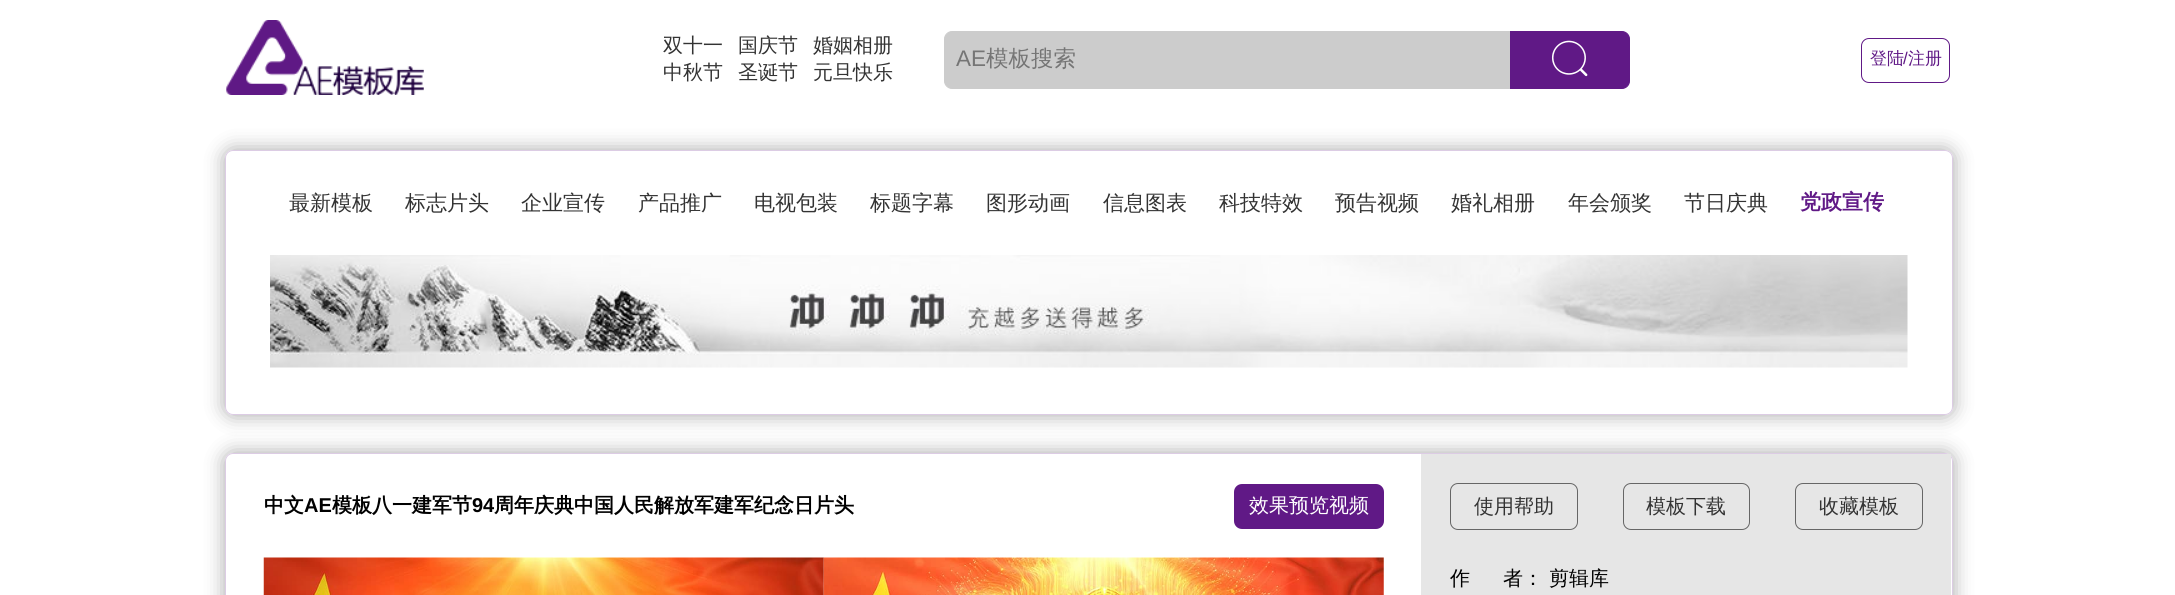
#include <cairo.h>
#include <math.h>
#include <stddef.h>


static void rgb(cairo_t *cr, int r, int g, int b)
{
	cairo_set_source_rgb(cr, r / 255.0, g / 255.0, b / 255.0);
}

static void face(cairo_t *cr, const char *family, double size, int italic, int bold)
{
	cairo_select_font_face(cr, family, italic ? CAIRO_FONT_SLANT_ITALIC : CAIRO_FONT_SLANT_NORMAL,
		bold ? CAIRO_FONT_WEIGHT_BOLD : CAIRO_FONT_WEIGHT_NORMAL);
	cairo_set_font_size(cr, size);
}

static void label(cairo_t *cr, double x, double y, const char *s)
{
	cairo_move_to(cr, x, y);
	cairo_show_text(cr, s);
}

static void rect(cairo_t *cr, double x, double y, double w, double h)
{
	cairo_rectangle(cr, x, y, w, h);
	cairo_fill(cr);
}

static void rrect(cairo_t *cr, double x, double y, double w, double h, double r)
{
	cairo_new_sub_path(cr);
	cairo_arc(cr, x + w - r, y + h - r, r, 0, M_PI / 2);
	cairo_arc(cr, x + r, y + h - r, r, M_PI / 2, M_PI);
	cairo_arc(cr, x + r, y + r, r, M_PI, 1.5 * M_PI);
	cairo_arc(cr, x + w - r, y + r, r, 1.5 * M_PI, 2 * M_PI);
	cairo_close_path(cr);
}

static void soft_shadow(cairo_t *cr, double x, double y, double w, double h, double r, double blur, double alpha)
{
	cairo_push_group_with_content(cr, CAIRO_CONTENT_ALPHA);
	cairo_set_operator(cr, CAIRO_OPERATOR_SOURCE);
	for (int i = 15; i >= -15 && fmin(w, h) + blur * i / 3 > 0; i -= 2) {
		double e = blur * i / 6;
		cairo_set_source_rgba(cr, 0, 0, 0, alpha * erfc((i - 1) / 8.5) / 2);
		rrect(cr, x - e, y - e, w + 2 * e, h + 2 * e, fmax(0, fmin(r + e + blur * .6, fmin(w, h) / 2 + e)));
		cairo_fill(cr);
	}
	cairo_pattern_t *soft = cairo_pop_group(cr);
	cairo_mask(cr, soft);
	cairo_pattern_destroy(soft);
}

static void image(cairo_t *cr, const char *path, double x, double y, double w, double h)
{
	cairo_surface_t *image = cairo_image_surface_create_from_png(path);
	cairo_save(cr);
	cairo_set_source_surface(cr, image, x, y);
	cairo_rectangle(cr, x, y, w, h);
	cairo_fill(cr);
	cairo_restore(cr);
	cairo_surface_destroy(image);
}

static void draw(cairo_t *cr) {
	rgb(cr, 255, 255, 255);
	cairo_paint(cr);
	image(cr, "image0.png", 226, 20, 198, 75);
	face(cr, "WenQuanYi Zen Hei Medium", 20, 0, 0);
	rgb(cr, 51, 51, 51);
	label(cr, 663, 52, "双十一");
	label(cr, 663, 79, "中秋节");
	label(cr, 738, 52, "国庆节");
	label(cr, 738, 79, "圣诞节");
	label(cr, 813, 52, "婚姻相册");
	label(cr, 813, 79, "元旦快乐");
	rgb(cr, 204, 204, 204);
	cairo_new_path(cr);
	cairo_move_to(cr, 952, 31.5);
	cairo_line_to(cr, 1509.5, 31.5);
	cairo_line_to(cr, 1509.5, 88.5);
	cairo_line_to(cr, 952, 88.5);
	cairo_curve_to(cr, 948, 88.5, 944.5, 85, 944.5, 81);
	cairo_line_to(cr, 944.5, 39);
	cairo_curve_to(cr, 944.5, 35, 948, 31.5, 952, 31.5);
	cairo_close_path(cr);
	cairo_fill_preserve(cr);
	cairo_set_line_width(cr, 1);
	cairo_stroke(cr);
	face(cr, "Liberation Sans", 22.5, 0, 0);
	rgb(cr, 117, 117, 117);
	label(cr, 956, 66, "AE");
	face(cr, "WenQuanYi Zen Hei Medium", 22.5, 0, 0);
	label(cr, 986, 66, "模板搜索");
	rgb(cr, 96, 25, 134);
	cairo_new_path(cr);
	cairo_move_to(cr, 1510.5, 31.5);
	cairo_line_to(cr, 1622, 31.5);
	cairo_curve_to(cr, 1626, 31.5, 1629.5, 35, 1629.5, 39);
	cairo_line_to(cr, 1629.5, 81);
	cairo_curve_to(cr, 1629.5, 85, 1626, 88.5, 1622, 88.5);
	cairo_line_to(cr, 1510.5, 88.5);
	cairo_close_path(cr);
	cairo_fill_preserve(cr);
	cairo_stroke(cr);
	image(cr, "image1.png", 1551, 40, 37, 37);
	rrect(cr, 1861.5, 38.5, 88, 44, 7.5);
	cairo_stroke(cr);
	face(cr, "WenQuanYi Zen Hei Medium", 17, 0, 0);
	label(cr, 1870, 64, "登陆");
	face(cr, "Liberation Sans", 17, 0, 0);
	label(cr, 1903, 64, "/");
	face(cr, "WenQuanYi Zen Hei Medium", 17, 0, 0);
	label(cr, 1908, 64, "注册");
	cairo_save(cr);
	cairo_set_fill_rule(cr, CAIRO_FILL_RULE_EVEN_ODD);
	cairo_new_path(cr);
	cairo_move_to(cr, 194, 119);
	cairo_line_to(cr, 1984, 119);
	cairo_line_to(cr, 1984, 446);
	cairo_line_to(cr, 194, 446);
	cairo_close_path(cr);
	cairo_move_to(cr, 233, 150);
	cairo_line_to(cr, 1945, 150);
	cairo_curve_to(cr, 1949.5, 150, 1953, 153.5, 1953, 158);
	cairo_line_to(cr, 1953, 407);
	cairo_curve_to(cr, 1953, 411.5, 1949.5, 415, 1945, 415);
	cairo_line_to(cr, 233, 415);
	cairo_curve_to(cr, 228.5, 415, 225, 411.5, 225, 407);
	cairo_line_to(cr, 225, 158);
	cairo_curve_to(cr, 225, 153.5, 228.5, 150, 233, 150);
	cairo_close_path(cr);
	cairo_clip(cr);
	rgb(cr, 0, 0, 0);
	soft_shadow(cr, 225, 150, 1728, 265, 8, 10, 0.35);
	cairo_restore(cr);
	rrect(cr, 225.5, 150.5, 1727, 264, 7.5);
	cairo_set_source_rgba(cr, 0.376, 0.098, 0.525, 0.22);
	cairo_stroke(cr);
	face(cr, "WenQuanYi Zen Hei Medium", 21, 0, 0);
	rgb(cr, 51, 51, 51);
	label(cr, 289, 210, "最新模板");
	label(cr, 405, 210, "标志片头");
	label(cr, 521, 210, "企业宣传");
	label(cr, 638, 210, "产品推广");
	label(cr, 754, 210, "电视包装");
	label(cr, 870, 210, "标题字幕");
	label(cr, 986, 210, "图形动画");
	label(cr, 1103, 210, "信息图表");
	label(cr, 1219, 210, "科技特效");
	label(cr, 1335, 210, "预告视频");
	label(cr, 1451, 210, "婚礼相册");
	label(cr, 1568, 210, "年会颁奖");
	label(cr, 1684, 210, "节日庆典");
	face(cr, "WenQuanYi Zen Hei", 21, 0, 1);
	rgb(cr, 96, 25, 134);
	label(cr, 1800, 209, "党政宣传");
	image(cr, "image2.png", 270, 255, 1638, 113);
	cairo_save(cr);
	cairo_set_fill_rule(cr, CAIRO_FILL_RULE_EVEN_ODD);
	cairo_new_path(cr);
	cairo_move_to(cr, 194, 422);
	cairo_line_to(cr, 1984, 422);
	cairo_line_to(cr, 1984, 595);
	cairo_line_to(cr, 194, 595);
	cairo_close_path(cr);
	cairo_move_to(cr, 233, 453);
	cairo_line_to(cr, 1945, 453);
	cairo_curve_to(cr, 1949.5, 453, 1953, 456.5, 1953, 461);
	cairo_line_to(cr, 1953, 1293);
	cairo_curve_to(cr, 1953, 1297.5, 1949.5, 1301, 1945, 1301);
	cairo_line_to(cr, 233, 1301);
	cairo_curve_to(cr, 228.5, 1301, 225, 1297.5, 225, 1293);
	cairo_line_to(cr, 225, 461);
	cairo_curve_to(cr, 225, 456.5, 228.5, 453, 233, 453);
	cairo_close_path(cr);
	cairo_clip(cr);
	rgb(cr, 0, 0, 0);
	soft_shadow(cr, 225, 453, 1728, 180, 8, 10, 0.35);
	cairo_restore(cr);
	rrect(cr, 225.5, 453.5, 1727, 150, 7.5);
	cairo_set_source_rgba(cr, 0.376, 0.098, 0.525, 0.22);
	cairo_stroke(cr);
	face(cr, "WenQuanYi Zen Hei", 20, 0, 1);
	rgb(cr, 0, 0, 0);
	label(cr, 264, 512, "中文");
	face(cr, "Liberation Sans", 20, 0, 1);
	label(cr, 304, 512, "AE");
	face(cr, "WenQuanYi Zen Hei", 20, 0, 1);
	label(cr, 332, 512, "模板八一建军节");
	face(cr, "Liberation Sans", 20, 0, 1);
	label(cr, 472, 512, "94");
	face(cr, "WenQuanYi Zen Hei", 20, 0, 1);
	label(cr, 494, 512, "周年庆典中国人民解放军建军纪念日片头");
	rgb(cr, 96, 25, 134);
	rrect(cr, 1234, 484, 150, 45, 8);
	cairo_fill(cr);
	face(cr, "WenQuanYi Zen Hei Medium", 20, 0, 0);
	rgb(cr, 255, 255, 255);
	label(cr, 1249, 512, "效果预览视频");
	image(cr, "image3.png", 263, 557, 561, 38);
	image(cr, "image4.png", 823, 557, 561, 38);
	rgb(cr, 230, 230, 230);
	rect(cr, 1421, 454, 530, 141);
	rrect(cr, 1450.5, 483.5, 127, 46, 7.5);
	rgb(cr, 102, 102, 102);
	cairo_stroke(cr);
	rgb(cr, 51, 51, 51);
	label(cr, 1474, 513, "使用帮助");
	rrect(cr, 1623.5, 483.5, 126, 46, 7.5);
	rgb(cr, 102, 102, 102);
	cairo_stroke(cr);
	rgb(cr, 51, 51, 51);
	label(cr, 1646, 513, "模板下载");
	rrect(cr, 1795.5, 483.5, 127, 46, 7.5);
	rgb(cr, 102, 102, 102);
	cairo_stroke(cr);
	rgb(cr, 51, 51, 51);
	label(cr, 1819, 513, "收藏模板");
	rgb(cr, 0, 0, 0);
	label(cr, 1450, 585, "作");
	label(cr, 1503, 585, "者：");
	label(cr, 1549, 585, "剪辑库");
}

int main(void) {
	cairo_surface_t *surface = cairo_image_surface_create(CAIRO_FORMAT_RGB24, 2175, 595);
	cairo_t *cr = cairo_create(surface);
	cairo_font_options_t *options = cairo_font_options_create();
	cairo_font_options_set_hint_metrics(options, CAIRO_HINT_METRICS_OFF);
	cairo_font_options_set_hint_style(options, CAIRO_HINT_STYLE_NONE);
	cairo_set_font_options(cr, options);
	cairo_set_miter_limit(cr, 4);
	draw(cr);
	cairo_surface_write_to_png(surface, "render.png");
	cairo_font_options_destroy(options);
	cairo_destroy(cr);
	cairo_surface_destroy(surface);
	return 0;
}
